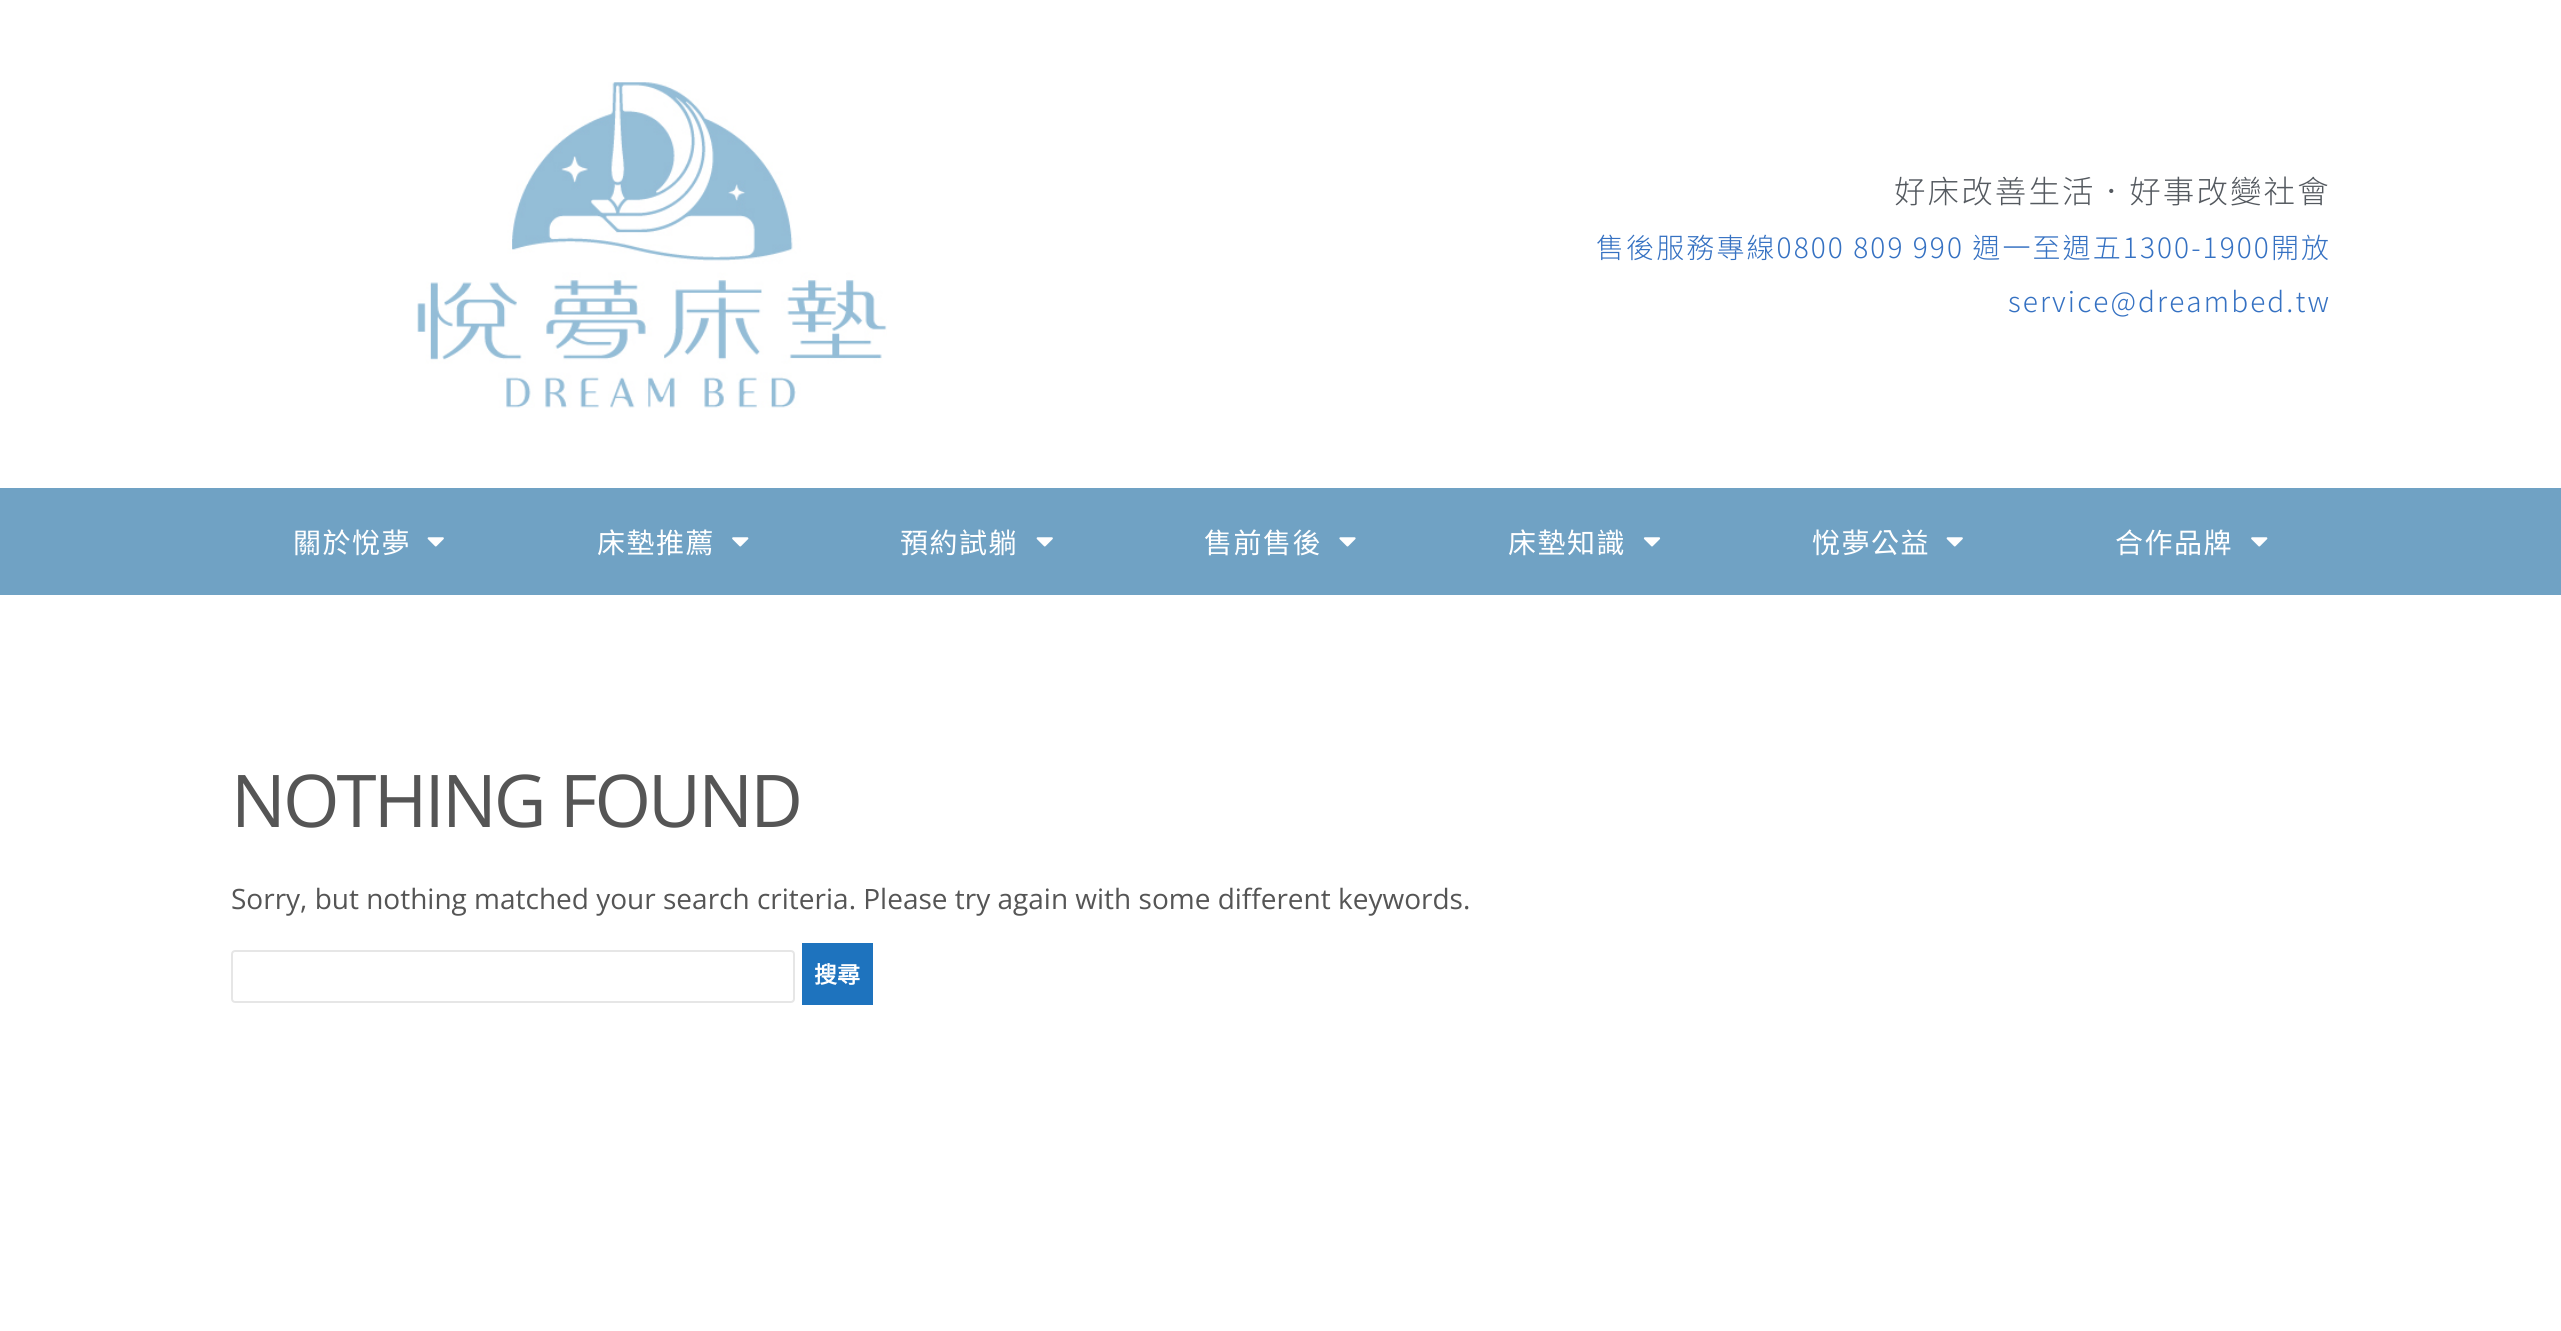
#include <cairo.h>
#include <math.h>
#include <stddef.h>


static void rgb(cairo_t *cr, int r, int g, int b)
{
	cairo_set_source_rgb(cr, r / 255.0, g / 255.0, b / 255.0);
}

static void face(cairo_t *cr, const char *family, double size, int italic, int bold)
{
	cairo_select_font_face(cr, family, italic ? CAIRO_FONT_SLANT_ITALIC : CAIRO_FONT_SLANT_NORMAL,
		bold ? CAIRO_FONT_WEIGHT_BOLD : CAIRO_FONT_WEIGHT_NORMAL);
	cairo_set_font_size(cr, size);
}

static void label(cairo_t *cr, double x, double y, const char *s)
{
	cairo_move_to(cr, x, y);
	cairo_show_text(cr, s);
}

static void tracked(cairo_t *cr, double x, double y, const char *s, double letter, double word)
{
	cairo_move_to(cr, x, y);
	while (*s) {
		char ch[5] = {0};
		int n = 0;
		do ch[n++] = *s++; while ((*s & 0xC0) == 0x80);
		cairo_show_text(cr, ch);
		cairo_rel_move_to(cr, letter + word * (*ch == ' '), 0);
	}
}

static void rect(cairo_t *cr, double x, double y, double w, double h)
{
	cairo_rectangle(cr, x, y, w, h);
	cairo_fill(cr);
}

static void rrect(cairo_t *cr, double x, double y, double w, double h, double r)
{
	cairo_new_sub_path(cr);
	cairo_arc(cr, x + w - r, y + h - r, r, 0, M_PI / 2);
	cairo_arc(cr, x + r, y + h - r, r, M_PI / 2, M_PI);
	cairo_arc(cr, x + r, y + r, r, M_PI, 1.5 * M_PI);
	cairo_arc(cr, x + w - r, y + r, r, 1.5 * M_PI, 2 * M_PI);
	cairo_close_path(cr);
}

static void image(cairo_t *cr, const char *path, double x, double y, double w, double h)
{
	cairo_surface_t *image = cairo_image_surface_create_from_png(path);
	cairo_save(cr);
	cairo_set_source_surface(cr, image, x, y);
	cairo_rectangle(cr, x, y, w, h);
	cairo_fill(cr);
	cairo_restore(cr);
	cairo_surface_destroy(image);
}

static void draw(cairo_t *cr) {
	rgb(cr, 255, 255, 255);
	cairo_paint(cr);
	image(cr, "image0.png", 417, 82, 470, 326);
	face(cr, "Noto Sans TC Light", 31.5, 0, 0);
	rgb(cr, 84, 89, 95);
	tracked(cr, 1894, 203, "好床改善生活．好事改變社會", 2.1, 0);
	face(cr, "Noto Sans TC Light", 28, 0, 0);
	rgb(cr, 53, 113, 194);
	tracked(cr, 1596, 258, "售後服務專線0800 809 990 週一至週五1300-1900開放", 2.1, 0);
	tracked(cr, 2008, 312, "service@dreambed.tw", 2.1, 0);
	rgb(cr, 112, 162, 196);
	rect(cr, 0, 488, 2561, 107);
	face(cr, "Noto Sans TC", 28, 0, 0);
	rgb(cr, 255, 255, 255);
	tracked(cr, 293, 553, "關於悅夢", 1.5, 0);
	image(cr, "image1.png", 427, 537, 17, 10);
	tracked(cr, 597, 553, "床墊推薦", 1.5, 0);
	image(cr, "image2.png", 732, 537, 17, 10);
	tracked(cr, 900, 553, "預約試躺", 1.5, 0);
	image(cr, "image1.png", 1036, 537, 17, 10);
	tracked(cr, 1204, 553, "售前售後", 1.5, 0);
	image(cr, "image3.png", 1339, 537, 17, 10);
	tracked(cr, 1508, 553, "床墊知識", 1.5, 0);
	image(cr, "image4.png", 1643, 537, 18, 10);
	tracked(cr, 1812, 553, "悅夢公益", 1.5, 0);
	image(cr, "image1.png", 1946, 537, 17, 10);
	tracked(cr, 2115, 553, "合作品牌", 1.5, 0);
	image(cr, "image2.png", 2251, 537, 17, 10);
	face(cr, "Open Sans", 72.75, 0, 0);
	rgb(cr, 85, 85, 85);
	tracked(cr, 231, 827, "NOTHING FOUND", -2.9, 0);
	face(cr, "Open Sans", 28, 0, 0);
	label(cr, 231, 909, "Sorry, but nothing matched your search criteria. Please try again with some different keywords.");
	rrect(cr, 232, 951, 562, 51, 3);
	rgb(cr, 230, 230, 230);
	cairo_stroke(cr);
	rgb(cr, 30, 115, 190);
	rect(cr, 802, 943, 71, 62);
	face(cr, "Noto Sans CJK TC", 23, 0, 1);
	rgb(cr, 255, 255, 255);
	label(cr, 814, 983, "搜尋");
}

int main(void) {
	cairo_surface_t *surface = cairo_image_surface_create(CAIRO_FORMAT_RGB24, 2561, 1331);
	cairo_t *cr = cairo_create(surface);
	cairo_font_options_t *options = cairo_font_options_create();
	cairo_font_options_set_hint_metrics(options, CAIRO_HINT_METRICS_OFF);
	cairo_font_options_set_hint_style(options, CAIRO_HINT_STYLE_NONE);
	cairo_set_font_options(cr, options);
	cairo_set_miter_limit(cr, 4);
	draw(cr);
	cairo_surface_write_to_png(surface, "render.png");
	cairo_font_options_destroy(options);
	cairo_destroy(cr);
	cairo_surface_destroy(surface);
	return 0;
}
